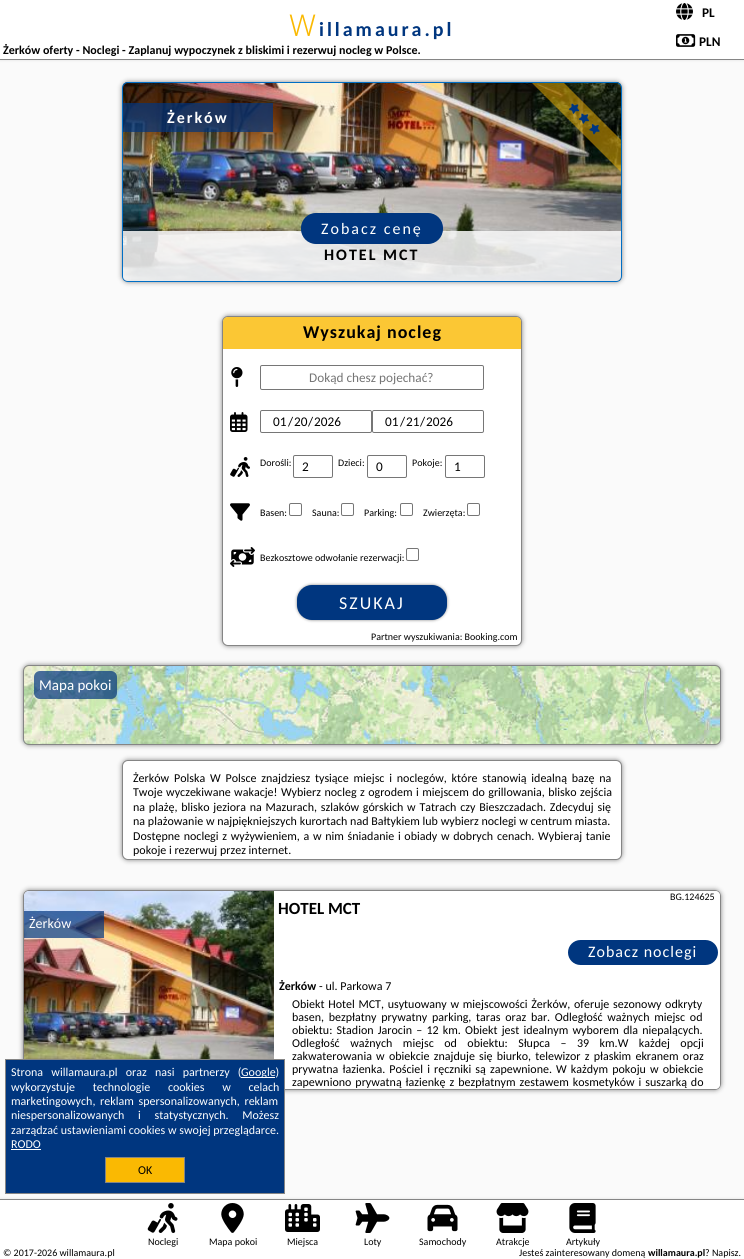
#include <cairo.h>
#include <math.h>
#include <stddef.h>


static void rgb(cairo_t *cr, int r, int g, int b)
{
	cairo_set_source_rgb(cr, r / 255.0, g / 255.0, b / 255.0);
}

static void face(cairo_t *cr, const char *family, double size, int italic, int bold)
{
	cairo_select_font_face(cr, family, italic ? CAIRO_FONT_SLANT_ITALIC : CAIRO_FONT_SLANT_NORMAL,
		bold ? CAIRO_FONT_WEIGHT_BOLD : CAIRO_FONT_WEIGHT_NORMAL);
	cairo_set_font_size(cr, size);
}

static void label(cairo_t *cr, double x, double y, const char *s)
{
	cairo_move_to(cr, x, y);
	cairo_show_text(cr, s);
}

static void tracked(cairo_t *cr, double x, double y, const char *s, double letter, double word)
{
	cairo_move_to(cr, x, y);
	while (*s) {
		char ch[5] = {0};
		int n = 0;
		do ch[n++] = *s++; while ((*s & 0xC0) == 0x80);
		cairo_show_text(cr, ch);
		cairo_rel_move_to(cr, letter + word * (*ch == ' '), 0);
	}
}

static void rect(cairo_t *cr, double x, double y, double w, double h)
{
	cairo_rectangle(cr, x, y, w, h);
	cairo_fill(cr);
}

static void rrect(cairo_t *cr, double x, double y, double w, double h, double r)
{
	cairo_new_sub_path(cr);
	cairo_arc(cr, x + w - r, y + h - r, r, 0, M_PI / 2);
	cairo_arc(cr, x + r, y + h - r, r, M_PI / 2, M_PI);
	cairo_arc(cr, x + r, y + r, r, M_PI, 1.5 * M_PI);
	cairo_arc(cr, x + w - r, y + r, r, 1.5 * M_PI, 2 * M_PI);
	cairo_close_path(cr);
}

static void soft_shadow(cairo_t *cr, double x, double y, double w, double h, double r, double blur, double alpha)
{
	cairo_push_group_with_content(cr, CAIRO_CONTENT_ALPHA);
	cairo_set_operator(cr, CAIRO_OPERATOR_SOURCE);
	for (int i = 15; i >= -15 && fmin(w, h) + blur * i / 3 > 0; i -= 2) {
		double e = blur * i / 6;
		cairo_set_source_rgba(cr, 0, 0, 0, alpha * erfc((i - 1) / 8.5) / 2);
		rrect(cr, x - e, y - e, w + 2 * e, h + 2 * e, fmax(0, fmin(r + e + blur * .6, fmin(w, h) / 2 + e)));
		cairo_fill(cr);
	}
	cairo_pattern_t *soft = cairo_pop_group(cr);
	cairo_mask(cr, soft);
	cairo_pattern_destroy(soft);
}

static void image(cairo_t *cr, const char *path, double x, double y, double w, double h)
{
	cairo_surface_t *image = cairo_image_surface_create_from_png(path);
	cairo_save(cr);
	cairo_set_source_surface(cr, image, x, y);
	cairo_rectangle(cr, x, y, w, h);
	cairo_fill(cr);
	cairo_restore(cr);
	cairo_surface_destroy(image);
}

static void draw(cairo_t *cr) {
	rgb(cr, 250, 250, 250);
	cairo_paint(cr);
	rgb(cr, 133, 133, 133);
	soft_shadow(cr, 0, -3, 744, 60, 0, 2.5, 1);
	rgb(cr, 255, 255, 255);
	rect(cr, 0, 0, 744, 59);
	rgb(cr, 133, 133, 133);
	rect(cr, 0, 59, 744, 1);
	image(cr, "image0.png", 676, 3, 17, 17);
	face(cr, "Carlito", 13.25, 0, 1);
	rgb(cr, 0, 0, 0);
	label(cr, 702, 17, "PL");
	face(cr, "Noto Sans Light", 30, 0, 0);
	rgb(cr, 250, 185, 2);
	tracked(cr, 289, 36, "W", 3, 0);
	face(cr, "Carlito", 20, 0, 1);
	rgb(cr, 0, 54, 127);
	tracked(cr, 319, 36, "illamaura.pl", 3, 0);
	image(cr, "image1.png", 676, 34, 20, 13);
	face(cr, "Carlito", 13.25, 0, 1);
	rgb(cr, 0, 0, 0);
	label(cr, 699, 46, "PLN");
	face(cr, "Carlito", 12, 0, 1);
	label(cr, 3, 54, "Żerków oferty - Noclegi - Zaplanuj wypoczynek z bliskimi i rezerwuj nocleg w Polsce.");
	rgb(cr, 133, 133, 133);
	soft_shadow(cr, 122, 82, 500, 200, 6, 2.5, 1);
	image(cr, "image2.png", 123, 82, 498, 199);
	rrect(cr, 122.5, 82.5, 499, 199, 5.5);
	rgb(cr, 0, 110, 197);
	cairo_set_line_width(cr, 1);
	cairo_stroke(cr);
	cairo_set_source_rgba(cr, 0, 0.212, 0.498, 0.7);
	rect(cr, 123, 103, 150, 29);
	face(cr, "Carlito", 16, 0, 1);
	rgb(cr, 255, 255, 255);
	tracked(cr, 167, 123, "Żerków", 2, 0);
	cairo_set_source_rgba(cr, 0.98, 0.725, 0.008, 0.5);
	cairo_new_path(cr);
	cairo_move_to(cr, 621, 172);
	cairo_line_to(cr, 532, 83);
	cairo_line_to(cr, 564, 83);
	cairo_line_to(cr, 621, 140);
	cairo_close_path(cr);
	cairo_fill(cr);
	image(cr, "image3.png", 568, 103, 12, 11);
	image(cr, "image4.png", 578, 113, 11, 11);
	image(cr, "image5.png", 589, 124, 11, 11);
	cairo_set_source_rgba(cr, 0.98, 0.98, 0.98, 0.85);
	cairo_new_path(cr);
	cairo_move_to(cr, 123, 231);
	cairo_line_to(cr, 621, 231);
	cairo_line_to(cr, 621, 276);
	cairo_curve_to(cr, 621, 279, 619, 281, 616, 281);
	cairo_line_to(cr, 128, 281);
	cairo_curve_to(cr, 125, 281, 123, 279, 123, 276);
	cairo_close_path(cr);
	cairo_fill(cr);
	rgb(cr, 0, 54, 127);
	rrect(cr, 301, 213, 142, 31, 15);
	cairo_fill(cr);
	face(cr, "Carlito", 16, 0, 0);
	rgb(cr, 255, 255, 255);
	tracked(cr, 321, 234, "Zobacz cenę", 2, 0);
	face(cr, "Carlito", 16, 0, 1);
	rgb(cr, 0, 0, 0);
	tracked(cr, 324, 260, "HOTEL MCT", 2, 0);
	rgb(cr, 133, 133, 133);
	soft_shadow(cr, 222, 316, 300, 330, 6, 2.5, 1);
	rgb(cr, 255, 255, 255);
	rrect(cr, 222.5, 316.5, 299, 329, 5.5);
	cairo_fill_preserve(cr);
	rgb(cr, 133, 133, 133);
	cairo_stroke(cr);
	cairo_set_source_rgba(cr, 0.98, 0.725, 0.008, 0.8);
	cairo_new_path(cr);
	cairo_move_to(cr, 228, 317);
	cairo_line_to(cr, 516, 317);
	cairo_curve_to(cr, 519, 317, 521, 319, 521, 322);
	cairo_line_to(cr, 521, 349);
	cairo_line_to(cr, 223, 349);
	cairo_line_to(cr, 223, 322);
	cairo_curve_to(cr, 223, 319, 225, 317, 228, 317);
	cairo_close_path(cr);
	cairo_fill(cr);
	face(cr, "Carlito", 18, 0, 1);
	rgb(cr, 0, 0, 0);
	tracked(cr, 303, 338, "Wyszukaj nocleg", 1, 0);
	image(cr, "image6.png", 231, 367, 12, 20);
	rrect(cr, 260.5, 365.5, 223, 24, 1.5);
	rgb(cr, 118, 118, 118);
	cairo_stroke(cr);
	face(cr, "Carlito", 13.25, 0, 0);
	rgb(cr, 117, 117, 117);
	label(cr, 309, 382, "Dokąd chesz pojechać?");
	image(cr, "image7.png", 230, 412, 18, 20);
	rrect(cr, 260.5, 410.5, 111, 22, 1.5);
	rgb(cr, 118, 118, 118);
	cairo_stroke(cr);
	rgb(cr, 0, 0, 0);
	label(cr, 273, 426, "01");
	label(cr, 288, 426, "/");
	label(cr, 294, 426, "20");
	label(cr, 308, 426, "/");
	label(cr, 314, 426, "2026");
	rrect(cr, 372.5, 410.5, 111, 22, 1.5);
	rgb(cr, 118, 118, 118);
	cairo_stroke(cr);
	rgb(cr, 0, 0, 0);
	label(cr, 385, 426, "01");
	label(cr, 400, 426, "/");
	label(cr, 406, 426, "21");
	label(cr, 420, 426, "/");
	label(cr, 426, 426, "2026");
	image(cr, "image8.png", 230, 457, 20, 20);
	face(cr, "Carlito", 10, 0, 0);
	label(cr, 260, 466, "Dorośli:");
	rrect(cr, 293.5, 455.5, 39, 22, 1.5);
	rgb(cr, 118, 118, 118);
	cairo_stroke(cr);
	face(cr, "Carlito", 13.25, 0, 0);
	rgb(cr, 0, 0, 0);
	label(cr, 302, 471, "2");
	face(cr, "Carlito", 10, 0, 0);
	label(cr, 338, 466, "Dzieci:");
	rrect(cr, 367.5, 455.5, 39, 22, 1.5);
	rgb(cr, 118, 118, 118);
	cairo_stroke(cr);
	face(cr, "Carlito", 13.25, 0, 0);
	rgb(cr, 0, 0, 0);
	label(cr, 376, 471, "0");
	face(cr, "Carlito", 10, 0, 0);
	label(cr, 412, 466, "Pokoje:");
	rrect(cr, 445.5, 455.5, 39, 22, 1.5);
	rgb(cr, 118, 118, 118);
	cairo_stroke(cr);
	face(cr, "Carlito", 13.25, 0, 0);
	rgb(cr, 0, 0, 0);
	label(cr, 454, 471, "1");
	image(cr, "image9.png", 230, 503, 20, 18);
	face(cr, "Carlito", 10, 0, 0);
	label(cr, 260, 516, "Basen:");
	rrect(cr, 289.5, 503.5, 12, 12, 1.5);
	rgb(cr, 118, 118, 118);
	cairo_stroke(cr);
	rgb(cr, 0, 0, 0);
	label(cr, 312, 516, "Sauna:");
	rrect(cr, 341.5, 503.5, 12, 12, 1.5);
	rgb(cr, 118, 118, 118);
	cairo_stroke(cr);
	rgb(cr, 0, 0, 0);
	label(cr, 364, 516, "Parking:");
	rrect(cr, 400.5, 503.5, 12, 12, 1.5);
	rgb(cr, 118, 118, 118);
	cairo_stroke(cr);
	rgb(cr, 0, 0, 0);
	label(cr, 423, 516, "Zwierzęta:");
	rrect(cr, 467.5, 503.5, 12, 12, 1.5);
	rgb(cr, 118, 118, 118);
	cairo_stroke(cr);
	image(cr, "image10.png", 230, 547, 25, 20);
	rgb(cr, 0, 0, 0);
	label(cr, 260, 561, "Bezkosztowe odwołanie rezerwacji:");
	rrect(cr, 406.5, 548.5, 12, 12, 1.5);
	rgb(cr, 118, 118, 118);
	cairo_stroke(cr);
	rgb(cr, 133, 133, 133);
	soft_shadow(cr, 297, 585, 150, 35, 15, 1.5, 1);
	rgb(cr, 0, 54, 127);
	rrect(cr, 297, 585, 150, 35, 15);
	cairo_fill(cr);
	face(cr, "Carlito", 18, 0, 0);
	rgb(cr, 255, 255, 255);
	tracked(cr, 339, 609, "SZUKAJ", 2, 0);
	face(cr, "Carlito", 10, 0, 0);
	rgb(cr, 0, 0, 0);
	label(cr, 371, 640, "Partner wyszukiwania: Booking.com");
	rgb(cr, 133, 133, 133);
	soft_shadow(cr, 23, 665, 698, 80, 6, 2.5, 1);
	image(cr, "image11.png", 23, 665, 698, 80);
	rrect(cr, 23.5, 665.5, 697, 79, 5.5);
	rgb(cr, 133, 133, 133);
	cairo_stroke(cr);
	cairo_set_source_rgba(cr, 0, 0.212, 0.498, 0.7);
	rrect(cr, 34, 671, 83, 28, 6);
	cairo_fill(cr);
	face(cr, "Carlito", 15, 0, 0);
	rgb(cr, 255, 255, 255);
	label(cr, 39, 690, "Mapa pokoi");
	rgb(cr, 133, 133, 133);
	soft_shadow(cr, 122, 760, 500, 100, 6, 2.5, 1);
	rgb(cr, 255, 255, 255);
	rrect(cr, 122.5, 760.5, 499, 99, 5.5);
	cairo_fill_preserve(cr);
	rgb(cr, 133, 133, 133);
	cairo_stroke(cr);
	face(cr, "Carlito", 12, 0, 0);
	rgb(cr, 0, 0, 0);
	tracked(cr, 133, 782, "Żerków Polska W Polsce znajdziesz tysiące miejsc i noclegów, które stanowią idealną bazę na", 0, 2.1);
	tracked(cr, 133, 796, "Twoje wyczekiwane wakacje! Wybierz nocleg z ogrodem i miejscem do grillowania, blisko zejścia", 0, 0.75);
	tracked(cr, 133, 811, "na plażę, blisko jeziora na Mazurach, szlaków górskich w Tatrach czy Bieszczadach. Zdecyduj się", 0, 1.1);
	tracked(cr, 133, 825, "na plażowanie w najpiękniejszych kurortach nad Bałtykiem lub wybierz noclegi w centrum miasta.", 0, 0.1);
	tracked(cr, 133, 840, "Dostępne noclegi z wyżywieniem, a w nim śniadanie i obiady w dobrych cenach. Wybieraj tanie", 0, 1);
	label(cr, 133, 854, "pokoje i rezerwuj przez internet.");
	rgb(cr, 133, 133, 133);
	soft_shadow(cr, 23, 890, 698, 200, 6, 2.5, 1);
	image(cr, "image12.png", 23, 890, 698, 200);
	rrect(cr, 23.5, 890.5, 697, 199, 5.5);
	rgb(cr, 133, 133, 133);
	cairo_stroke(cr);
	image(cr, "image13.png", 24, 891, 250, 168);
	rgb(cr, 255, 255, 255);
	cairo_new_path(cr);
	cairo_move_to(cr, 274, 891);
	cairo_line_to(cr, 715, 891);
	cairo_curve_to(cr, 718, 891, 720, 893, 720, 896);
	cairo_line_to(cr, 720, 969);
	cairo_line_to(cr, 274, 969);
	cairo_close_path(cr);
	cairo_fill(cr);
	face(cr, "Carlito", 10, 0, 0);
	rgb(cr, 0, 0, 0);
	label(cr, 670, 900, "BG.124625");
	face(cr, "Carlito", 17, 0, 1);
	label(cr, 278, 914, "HOTEL MCT");
	cairo_set_source_rgba(cr, 0, 0.212, 0.498, 0.7);
	rect(cr, 24, 911, 80, 27);
	face(cr, "Carlito", 14, 0, 0);
	rgb(cr, 255, 255, 255);
	label(cr, 29, 928, "Żerków");
	rgb(cr, 0, 54, 127);
	rrect(cr, 568, 940, 150, 25, 12.5);
	cairo_fill(cr);
	face(cr, "Carlito", 16, 0, 0);
	rgb(cr, 255, 255, 255);
	tracked(cr, 588, 957, "Zobacz noclegi", 1, 0);
	cairo_new_path(cr);
	cairo_move_to(cr, 274, 969);
	cairo_line_to(cr, 720, 969);
	cairo_line_to(cr, 720, 1084);
	cairo_curve_to(cr, 720, 1087, 718, 1089, 715, 1089);
	cairo_line_to(cr, 274, 1089);
	cairo_close_path(cr);
	cairo_fill(cr);
	face(cr, "Carlito", 12, 0, 1);
	rgb(cr, 0, 0, 0);
	label(cr, 279, 990, "Żerków");
	face(cr, "Carlito", 12, 0, 0);
	label(cr, 319, 990, "- ul. Parkowa 7");
	tracked(cr, 292, 1008, "Obiekt Hotel MCT, usytuowany w miejscowości Żerków, oferuje sezonowy odkryty", 0, 1);
	tracked(cr, 292, 1021, "basen, bezpłatny prywatny parking, taras oraz bar. Odległość ważnych miejsc od", 0, 2);
	tracked(cr, 292, 1034, "obiektu: Stadion Jarocin – 12 km. Obiekt jest idealnym wyborem dla niepalących.", 0, 1.5);
	tracked(cr, 292, 1047, "Odległość ważnych miejsc od obiektu: Słupca – 39 km.W każdej opcji", 0, 7.75);
	tracked(cr, 292, 1060, "zakwaterowania w obiekcie znajduje się biurko, telewizor z płaskim ekranem oraz", 0, 1.5);
	tracked(cr, 292, 1073, "prywatna łazienka. Pościel i ręczniki są zapewnione. W każdym pokoju w obiekcie", 0, 1.4);
	tracked(cr, 292, 1086, "zapewniono prywatną łazienkę z bezpłatnym zestawem kosmetyków i suszarką do", 0, 1.25);
	rgb(cr, 133, 133, 133);
	soft_shadow(cr, 0, 1202, 744, 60, 0, 2.5, 1);
	rgb(cr, 0, 54, 127);
	cairo_rectangle(cr, 5.5, 1059.5, 279, 134);
	cairo_fill_preserve(cr);
	rgb(cr, 133, 133, 133);
	cairo_stroke(cr);
	rgb(cr, 255, 255, 255);
	tracked(cr, 11, 1076, "Strona willamaura.pl oraz nasi partnerzy (", 0, 5.5);
	rect(cr, 241, 1077, 34, 1);
	label(cr, 241, 1076, "Google)");
	tracked(cr, 11, 1091, "wykorzystuje technologie cookies w celach", 0, 15);
	tracked(cr, 11, 1105, "marketingowych, reklam spersonalizowanych, reklam", 0, 2);
	tracked(cr, 11, 1119, "niespersonalizowanych i statystycznych. Możesz", 0, 11);
	label(cr, 11, 1134, "zarządzać ustawieniami cookies w swojej przeglądarce.");
	label(cr, 11, 1148, "RODO");
	rect(cr, 11, 1149, 30, 1);
	rgb(cr, 250, 185, 2);
	cairo_rectangle(cr, 105.5, 1157.5, 79, 25);
	cairo_fill_preserve(cr);
	rgb(cr, 133, 133, 133);
	cairo_stroke(cr);
	rgb(cr, 0, 0, 0);
	label(cr, 138, 1174, "OK");
	rgb(cr, 255, 255, 255);
	rect(cr, 0, 1200, 744, 59);
	rgb(cr, 133, 133, 133);
	rect(cr, 0, 1199, 744, 1);
	image(cr, "image14.png", 147, 1203, 31, 30);
	face(cr, "Carlito", 10, 0, 0);
	rgb(cr, 0, 0, 0);
	label(cr, 148, 1245, "Noclegi");
	image(cr, "image15.png", 221, 1203, 23, 30);
	label(cr, 209, 1245, "Mapa pokoi");
	image(cr, "image16.png", 285, 1204, 35, 28);
	label(cr, 287, 1245, "Miejsca");
	image(cr, "image17.png", 355, 1203, 35, 30);
	label(cr, 364, 1245, "Loty");
	image(cr, "image18.png", 427, 1204, 31, 28);
	label(cr, 419, 1245, "Samochody");
	image(cr, "image19.png", 496, 1203, 33, 30);
	label(cr, 496, 1245, "Atrakcje");
	image(cr, "image20.png", 569, 1203, 27, 30);
	label(cr, 566, 1245, "Artykuły");
	label(cr, 3, 1256, "© 2017-2026 willamaura.pl");
	label(cr, 519, 1256, "Jesteś zainteresowany domeną");
	face(cr, "Carlito", 10, 0, 1);
	label(cr, 648, 1256, "willamaura.pl");
	face(cr, "Carlito", 10, 0, 0);
	label(cr, 705, 1256, "? Napisz.");
}

int main(void) {
	cairo_surface_t *surface = cairo_image_surface_create(CAIRO_FORMAT_RGB24, 744, 1259);
	cairo_t *cr = cairo_create(surface);
	cairo_font_options_t *options = cairo_font_options_create();
	cairo_font_options_set_hint_metrics(options, CAIRO_HINT_METRICS_OFF);
	cairo_font_options_set_hint_style(options, CAIRO_HINT_STYLE_NONE);
	cairo_set_font_options(cr, options);
	cairo_set_miter_limit(cr, 4);
	draw(cr);
	cairo_surface_write_to_png(surface, "render.png");
	cairo_font_options_destroy(options);
	cairo_destroy(cr);
	cairo_surface_destroy(surface);
	return 0;
}
